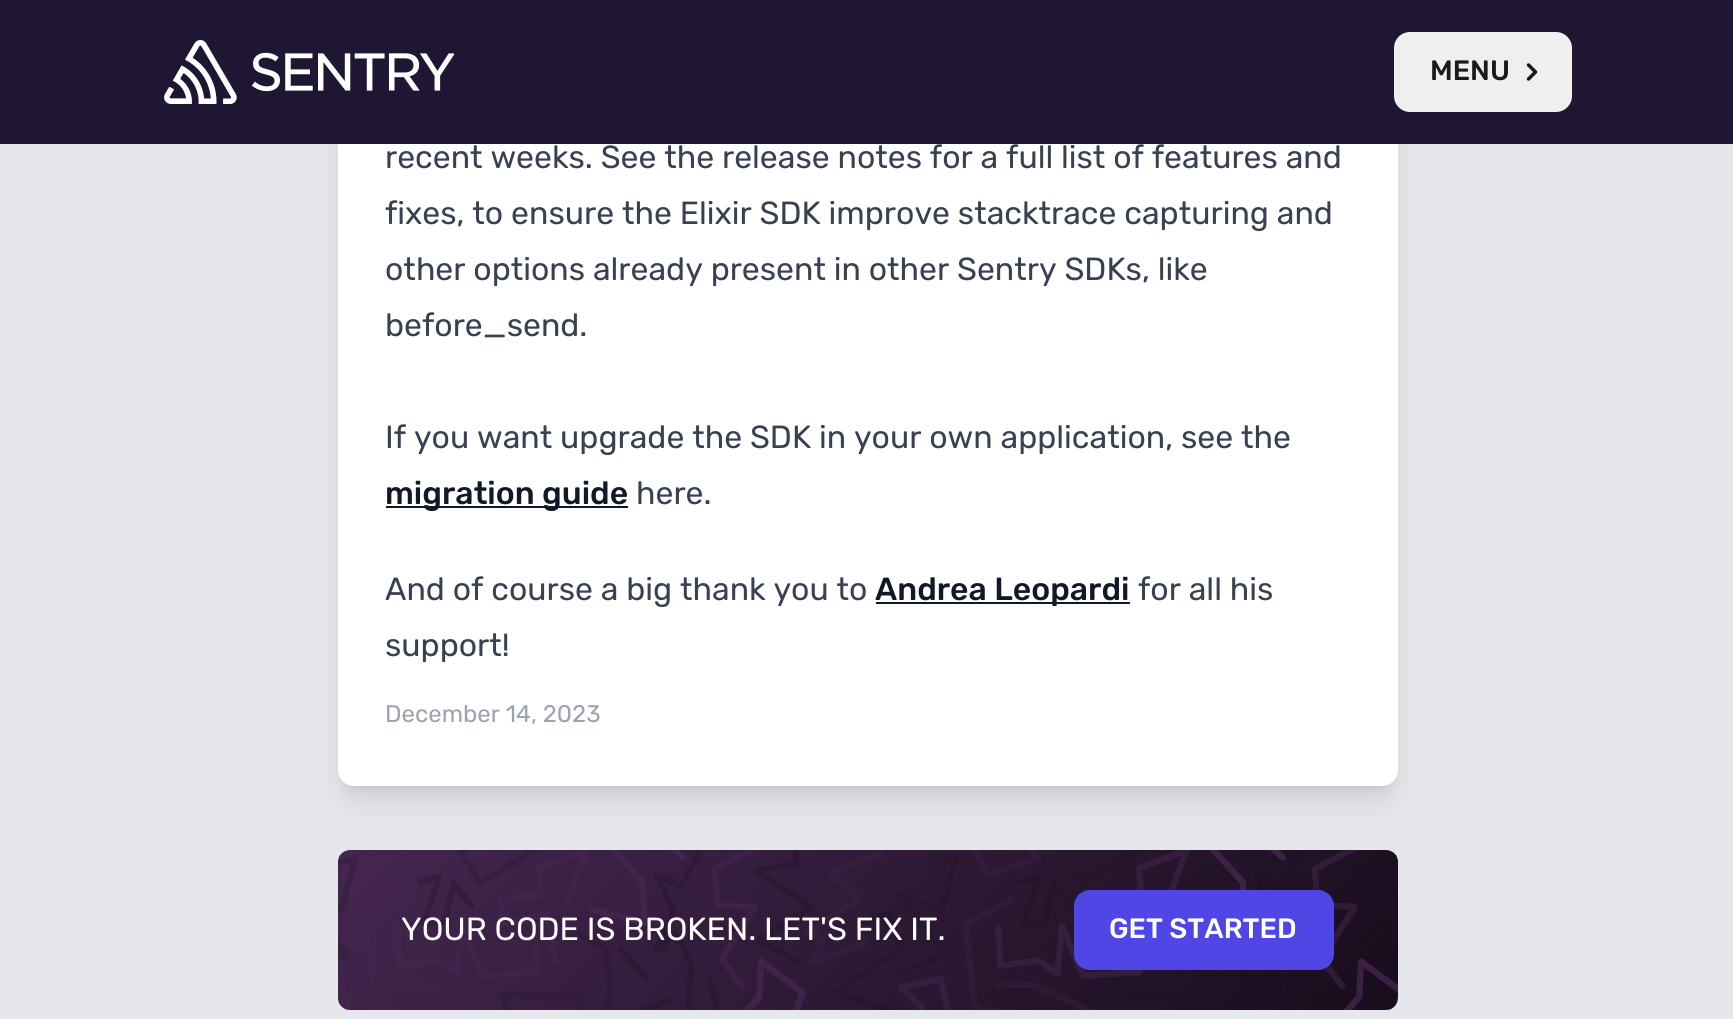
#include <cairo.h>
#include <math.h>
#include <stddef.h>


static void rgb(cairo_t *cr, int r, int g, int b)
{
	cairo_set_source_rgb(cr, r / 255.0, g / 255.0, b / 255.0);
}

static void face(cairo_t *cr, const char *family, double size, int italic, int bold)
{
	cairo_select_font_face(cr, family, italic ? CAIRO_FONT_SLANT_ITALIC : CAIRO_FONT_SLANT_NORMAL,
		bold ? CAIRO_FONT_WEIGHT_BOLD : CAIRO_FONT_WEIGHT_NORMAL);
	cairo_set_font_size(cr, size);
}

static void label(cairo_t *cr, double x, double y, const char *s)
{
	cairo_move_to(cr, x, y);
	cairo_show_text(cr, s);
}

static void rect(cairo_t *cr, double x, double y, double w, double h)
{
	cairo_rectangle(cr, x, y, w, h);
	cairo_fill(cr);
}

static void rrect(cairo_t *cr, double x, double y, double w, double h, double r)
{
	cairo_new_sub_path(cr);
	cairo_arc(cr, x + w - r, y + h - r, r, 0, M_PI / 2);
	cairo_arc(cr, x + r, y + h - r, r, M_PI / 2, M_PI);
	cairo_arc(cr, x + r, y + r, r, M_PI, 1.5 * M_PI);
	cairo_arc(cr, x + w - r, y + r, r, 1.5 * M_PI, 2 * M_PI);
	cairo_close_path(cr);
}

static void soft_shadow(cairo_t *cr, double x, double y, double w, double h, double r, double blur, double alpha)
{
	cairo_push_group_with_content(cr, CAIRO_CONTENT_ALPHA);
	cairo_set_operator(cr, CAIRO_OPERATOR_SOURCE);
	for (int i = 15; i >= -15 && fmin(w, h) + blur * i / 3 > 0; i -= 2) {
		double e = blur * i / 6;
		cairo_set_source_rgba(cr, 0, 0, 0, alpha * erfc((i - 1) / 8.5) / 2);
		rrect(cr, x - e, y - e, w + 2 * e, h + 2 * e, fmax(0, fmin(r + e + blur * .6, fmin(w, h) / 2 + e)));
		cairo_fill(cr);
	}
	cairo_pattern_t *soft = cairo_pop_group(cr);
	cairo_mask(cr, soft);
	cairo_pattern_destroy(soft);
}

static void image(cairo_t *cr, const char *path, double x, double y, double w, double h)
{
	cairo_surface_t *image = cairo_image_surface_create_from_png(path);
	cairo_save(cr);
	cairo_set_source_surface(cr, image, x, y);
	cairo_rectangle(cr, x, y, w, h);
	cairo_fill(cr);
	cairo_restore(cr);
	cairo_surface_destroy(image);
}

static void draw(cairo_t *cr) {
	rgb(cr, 229, 231, 235);
	cairo_paint(cr);
	rgb(cr, 0, 0, 0);
	soft_shadow(cr, 346, -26, 1044, 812, 8, 6, 0.1);
	soft_shadow(cr, 344, -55, 1048, 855, 10, 15, 0.1);
	rgb(cr, 255, 255, 255);
	rrect(cr, 338, -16, 1060, 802, 16);
	cairo_fill(cr);
	rgb(cr, 31, 22, 51);
	rect(cr, 0, 0, 1733, 144);
	image(cr, "image0.png", 164, 40, 290, 64);
	rgb(cr, 239, 239, 239);
	rrect(cr, 1394, 32, 178, 80, 16);
	cairo_fill(cr);
	face(cr, "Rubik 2 Light", 28, 0, 0);
	rgb(cr, 26, 26, 26);
	label(cr, 1430, 80, "MENU");
	cairo_new_path(cr);
	cairo_move_to(cr, 1528.5, 65);
	cairo_line_to(cr, 1535.5, 72);
	cairo_line_to(cr, 1528.5, 79);
	cairo_set_line_width(cr, 3.5);
	cairo_set_line_cap(cr, CAIRO_LINE_CAP_ROUND);
	cairo_set_line_join(cr, CAIRO_LINE_JOIN_ROUND);
	cairo_stroke(cr);
	face(cr, "Rubik Light", 32, 0, 0);
	rgb(cr, 55, 65, 81);
	label(cr, 385, 168, "recent weeks. See the release notes for a full list of features and");
	label(cr, 385, 224, "fixes, to ensure the Elixir SDK improve stacktrace capturing and");
	label(cr, 385, 280, "other options already present in other Sentry SDKs, like");
	label(cr, 385, 336, "before_send.");
	label(cr, 385, 448, "If you want upgrade the SDK in your own application, see the");
	rgb(cr, 17, 24, 39);
	rect(cr, 386, 506, 242, 2);
	face(cr, "Rubik 2 Light", 32, 0, 0);
	label(cr, 385, 504, "migration guide");
	face(cr, "Rubik Light", 32, 0, 0);
	rgb(cr, 55, 65, 81);
	label(cr, 636, 504, "here.");
	label(cr, 385, 600, "And of course a big thank you to");
	rgb(cr, 17, 24, 39);
	rect(cr, 876, 602, 254, 2);
	face(cr, "Rubik 2 Light", 32, 0, 0);
	label(cr, 875, 600, "Andrea Leopardi");
	face(cr, "Rubik Light", 32, 0, 0);
	rgb(cr, 55, 65, 81);
	label(cr, 1138, 600, "for all his");
	label(cr, 385, 656, "support!");
	face(cr, "Rubik Light", 24, 0, 0);
	rgb(cr, 156, 163, 175);
	label(cr, 385, 722, "December 14, 2023");
	image(cr, "image1.png", 338, 850, 1060, 160);
	face(cr, "Rubik Light", 32, 0, 0);
	rgb(cr, 255, 255, 255);
	label(cr, 401, 940, "YOUR CODE IS BROKEN. LET'S FIX IT.");
	rgb(cr, 79, 70, 229);
	rrect(cr, 1074, 890, 260, 80, 16);
	cairo_fill(cr);
	face(cr, "Rubik 2 Light", 28, 0, 0);
	rgb(cr, 255, 255, 255);
	label(cr, 1109, 938, "GET STARTED");
}

int main(void) {
	cairo_surface_t *surface = cairo_image_surface_create(CAIRO_FORMAT_RGB24, 1733, 1019);
	cairo_t *cr = cairo_create(surface);
	cairo_font_options_t *options = cairo_font_options_create();
	cairo_font_options_set_hint_metrics(options, CAIRO_HINT_METRICS_OFF);
	cairo_font_options_set_hint_style(options, CAIRO_HINT_STYLE_NONE);
	cairo_set_font_options(cr, options);
	cairo_set_miter_limit(cr, 4);
	draw(cr);
	cairo_surface_write_to_png(surface, "render.png");
	cairo_font_options_destroy(options);
	cairo_destroy(cr);
	cairo_surface_destroy(surface);
	return 0;
}
